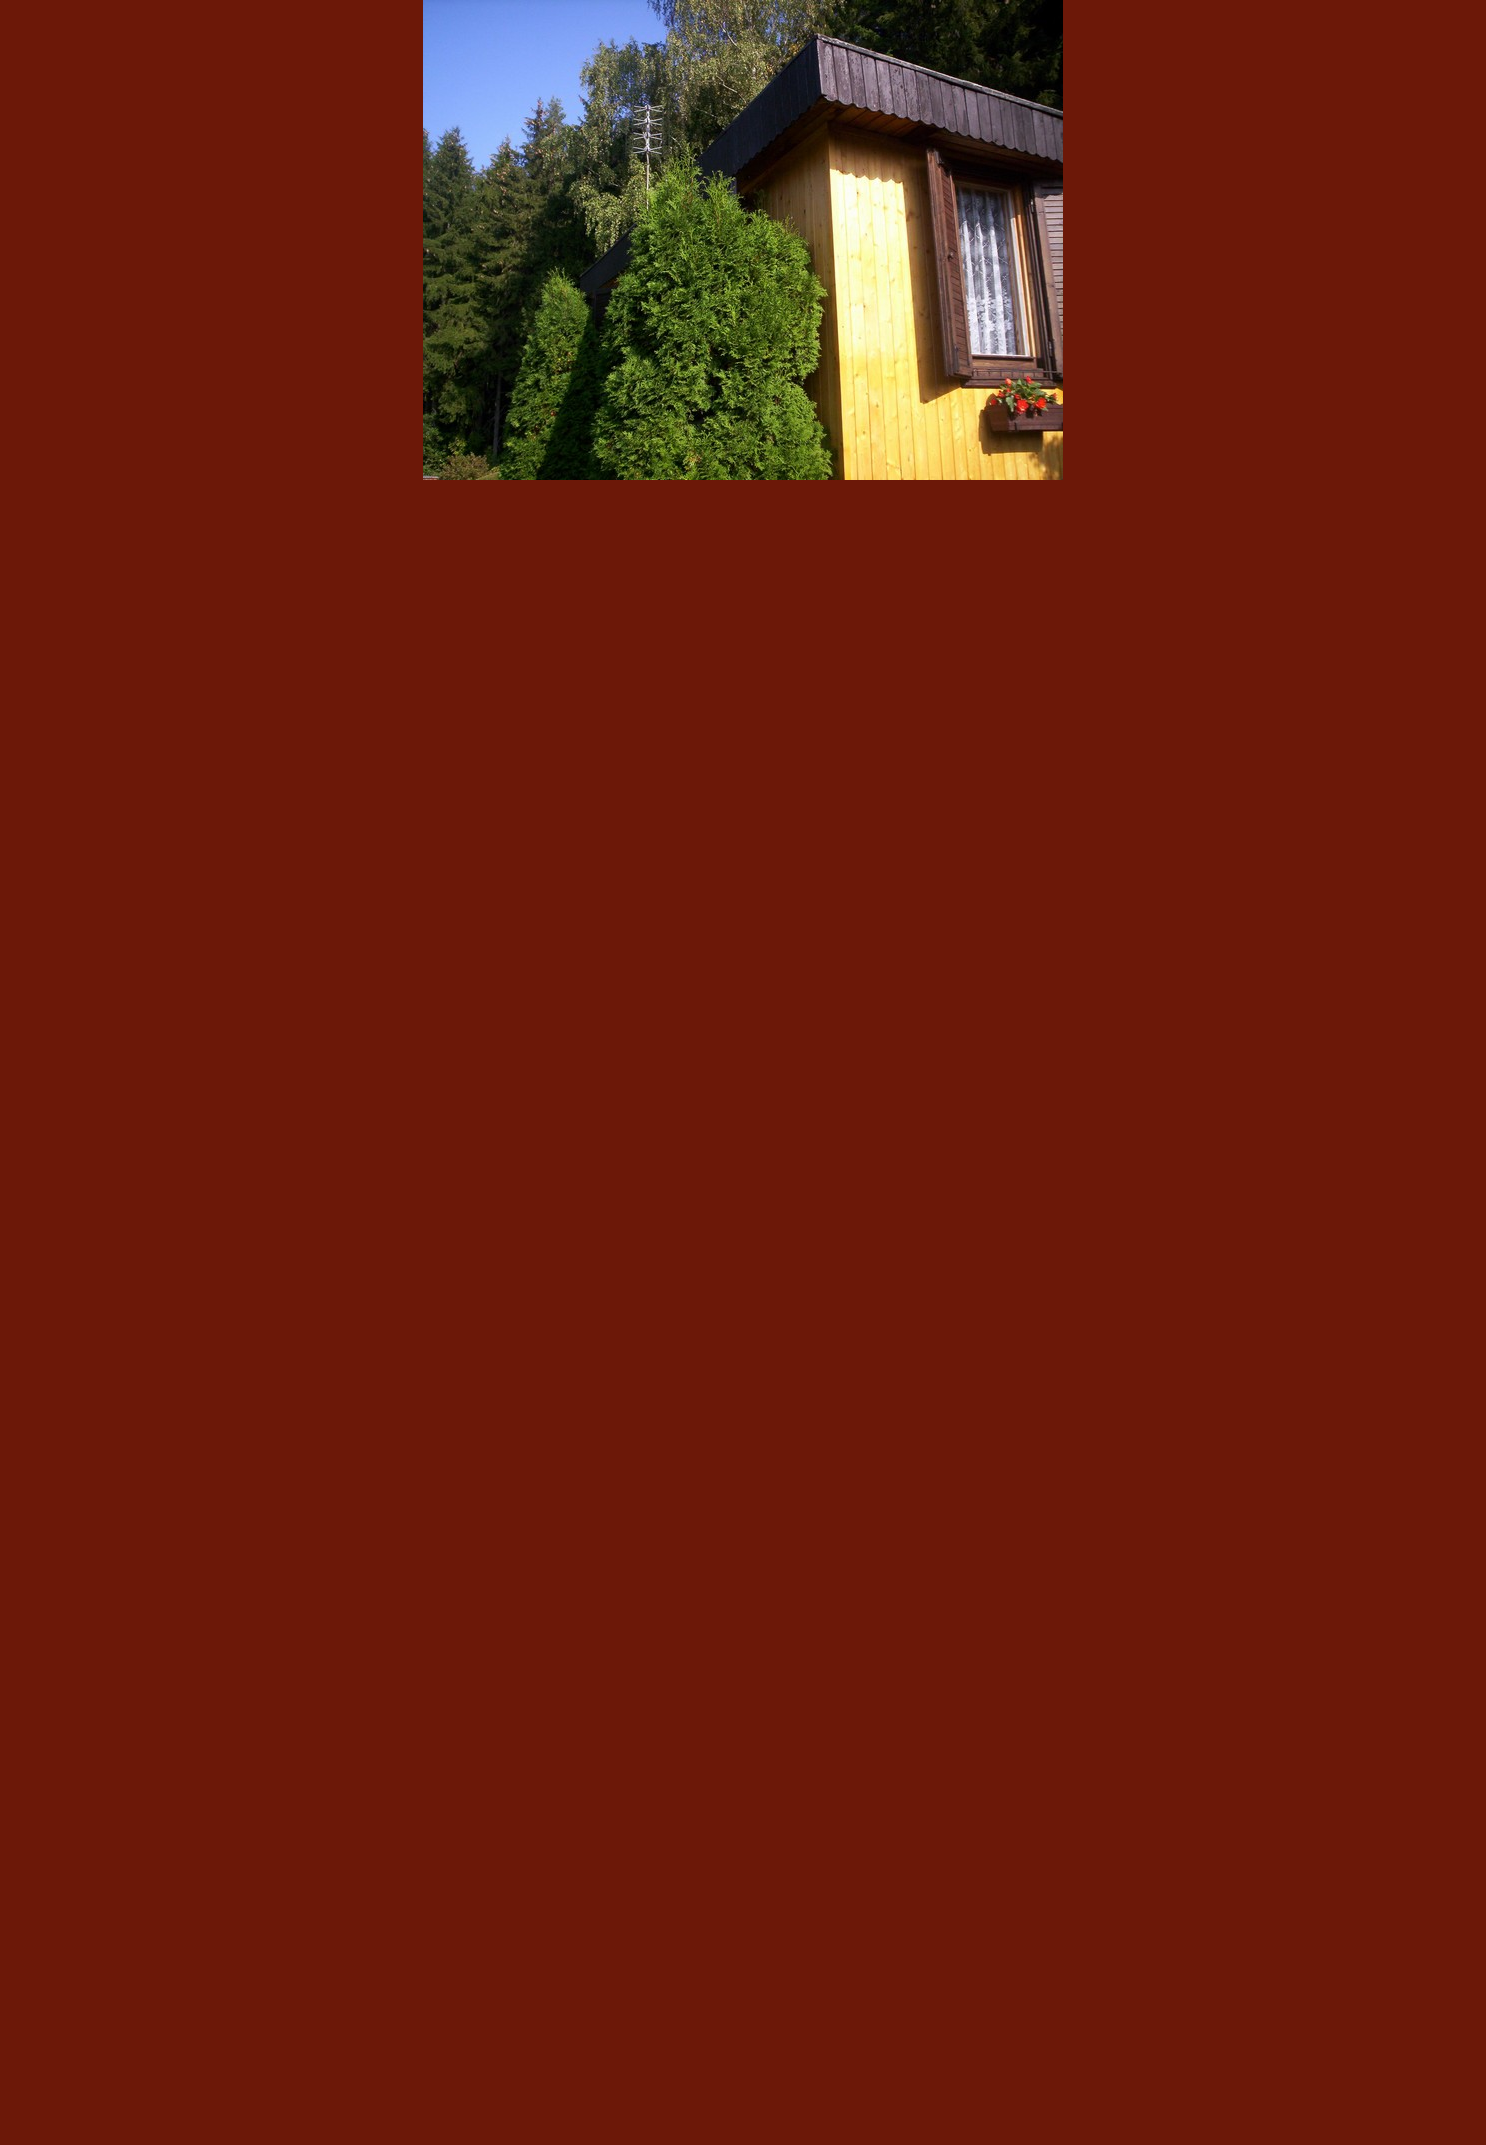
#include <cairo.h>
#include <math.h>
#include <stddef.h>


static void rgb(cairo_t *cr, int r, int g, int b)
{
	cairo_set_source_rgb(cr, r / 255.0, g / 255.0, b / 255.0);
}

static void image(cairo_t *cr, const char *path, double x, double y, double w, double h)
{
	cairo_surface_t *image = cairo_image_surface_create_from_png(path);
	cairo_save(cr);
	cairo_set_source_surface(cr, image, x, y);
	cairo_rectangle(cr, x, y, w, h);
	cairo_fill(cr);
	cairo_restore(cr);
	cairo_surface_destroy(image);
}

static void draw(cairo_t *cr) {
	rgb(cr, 108, 24, 8);
	cairo_paint(cr);
	image(cr, "image0.png", 423, 0, 640, 480);
}

int main(void) {
	cairo_surface_t *surface = cairo_image_surface_create(CAIRO_FORMAT_RGB24, 1486, 2145);
	cairo_t *cr = cairo_create(surface);
	cairo_font_options_t *options = cairo_font_options_create();
	cairo_font_options_set_hint_metrics(options, CAIRO_HINT_METRICS_OFF);
	cairo_font_options_set_hint_style(options, CAIRO_HINT_STYLE_NONE);
	cairo_set_font_options(cr, options);
	cairo_set_miter_limit(cr, 4);
	draw(cr);
	cairo_surface_write_to_png(surface, "render.png");
	cairo_font_options_destroy(options);
	cairo_destroy(cr);
	cairo_surface_destroy(surface);
	return 0;
}
